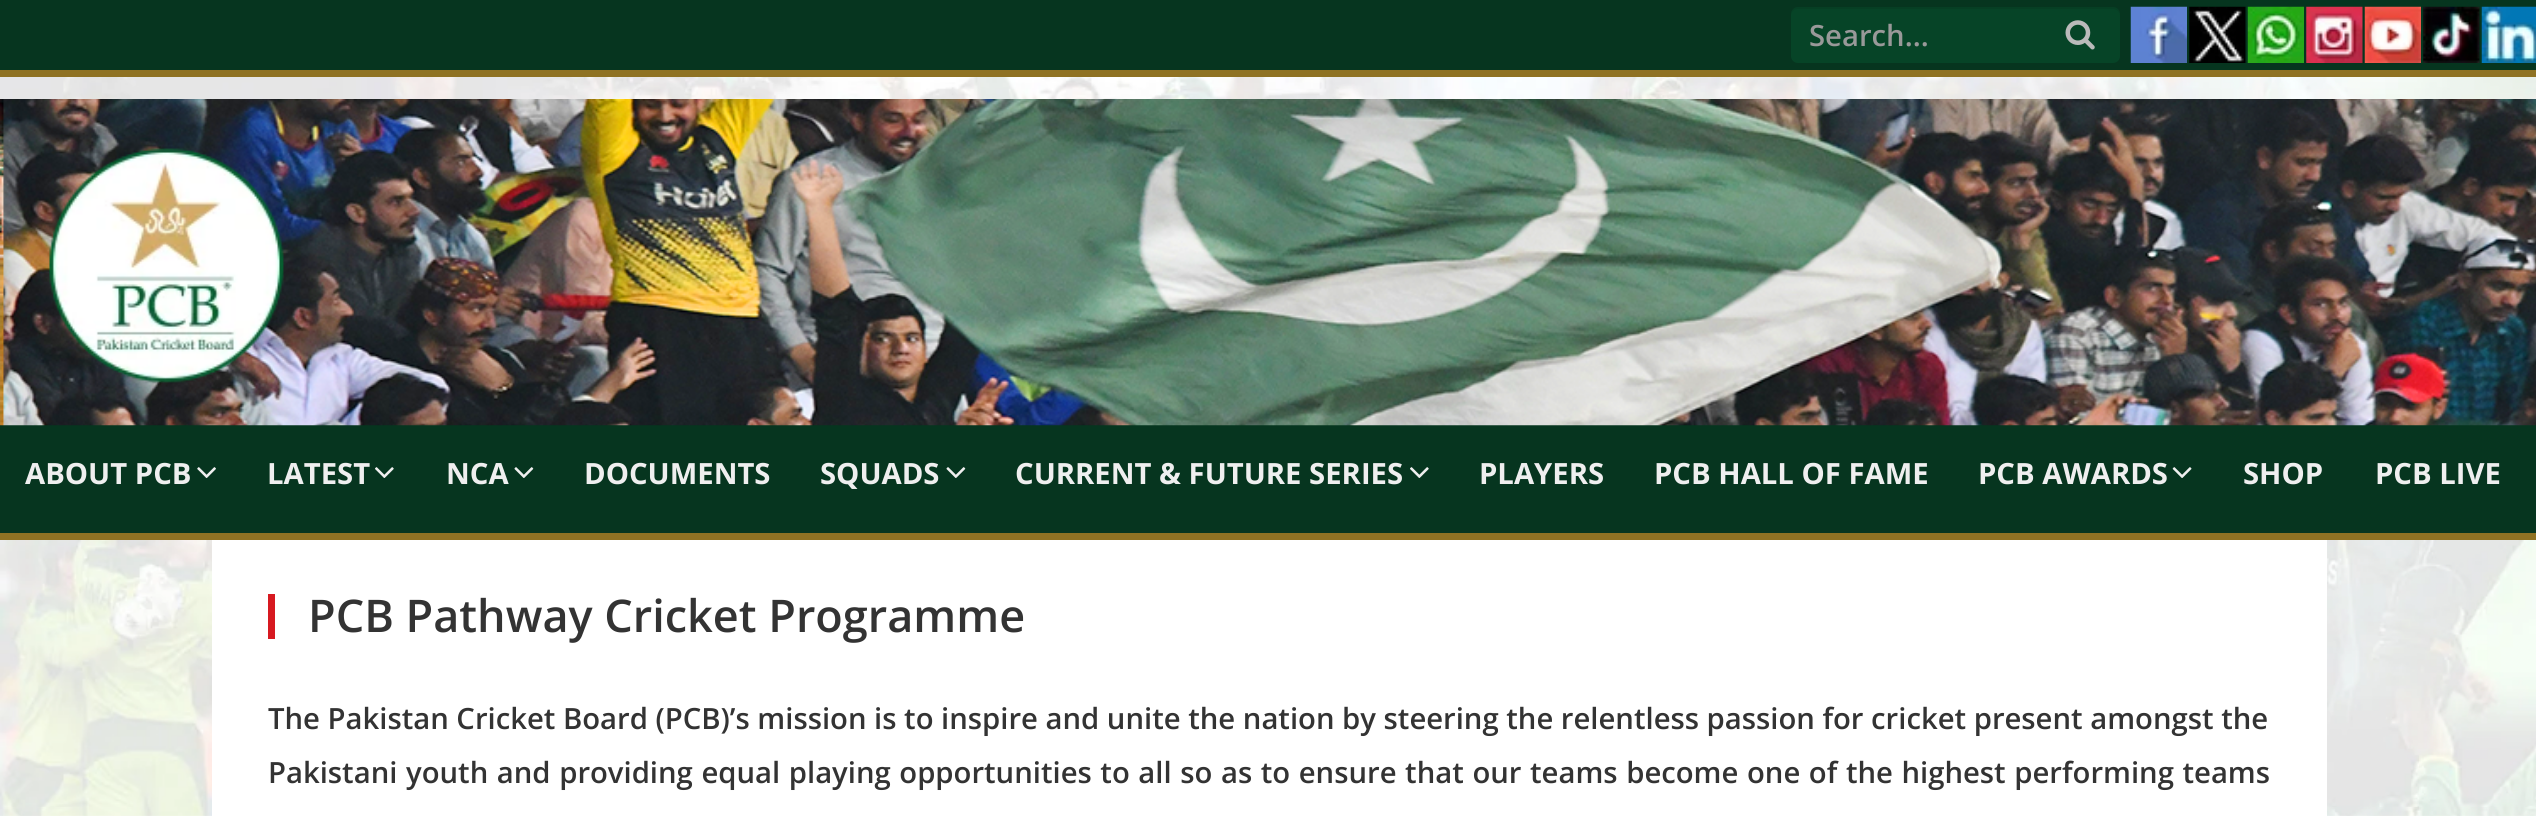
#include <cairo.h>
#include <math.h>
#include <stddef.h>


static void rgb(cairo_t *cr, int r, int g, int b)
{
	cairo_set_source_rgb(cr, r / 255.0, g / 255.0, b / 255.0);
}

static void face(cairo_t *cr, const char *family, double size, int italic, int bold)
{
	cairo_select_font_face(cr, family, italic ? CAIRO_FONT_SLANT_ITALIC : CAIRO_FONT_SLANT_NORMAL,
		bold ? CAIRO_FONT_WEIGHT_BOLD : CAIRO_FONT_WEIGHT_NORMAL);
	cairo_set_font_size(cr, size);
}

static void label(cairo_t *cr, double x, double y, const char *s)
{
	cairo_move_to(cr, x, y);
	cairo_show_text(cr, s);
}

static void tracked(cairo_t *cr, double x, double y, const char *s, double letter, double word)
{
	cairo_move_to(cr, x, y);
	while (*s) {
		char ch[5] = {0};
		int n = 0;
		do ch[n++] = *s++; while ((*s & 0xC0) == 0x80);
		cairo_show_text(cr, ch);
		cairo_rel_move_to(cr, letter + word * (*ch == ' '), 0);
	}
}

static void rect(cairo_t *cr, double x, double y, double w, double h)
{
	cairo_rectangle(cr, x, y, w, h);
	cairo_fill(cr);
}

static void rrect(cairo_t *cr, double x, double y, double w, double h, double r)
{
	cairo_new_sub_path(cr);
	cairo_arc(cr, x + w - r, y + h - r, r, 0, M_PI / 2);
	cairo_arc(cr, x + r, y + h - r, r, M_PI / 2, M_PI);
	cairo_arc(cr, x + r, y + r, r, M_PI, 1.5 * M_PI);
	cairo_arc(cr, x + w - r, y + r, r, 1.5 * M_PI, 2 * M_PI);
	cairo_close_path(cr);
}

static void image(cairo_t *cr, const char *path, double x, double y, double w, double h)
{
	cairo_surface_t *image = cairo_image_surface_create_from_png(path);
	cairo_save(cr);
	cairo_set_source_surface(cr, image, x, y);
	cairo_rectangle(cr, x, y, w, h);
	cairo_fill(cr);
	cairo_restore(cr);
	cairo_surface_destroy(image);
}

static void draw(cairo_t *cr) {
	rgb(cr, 255, 255, 255);
	cairo_paint(cr);
	image(cr, "image0.png", 0, 77, 2536, 739);
	rgb(cr, 6, 53, 31);
	rect(cr, 0, 0, 2536, 70);
	rgb(cr, 143, 114, 35);
	rect(cr, 0, 70, 2536, 7);
	rgb(cr, 6, 68, 39);
	rrect(cr, 1791, 7, 329, 56, 7);
	cairo_fill(cr);
	cairo_set_source_rgba(cr, 0, 0, 0, 0.07);
	cairo_new_path(cr);
	cairo_move_to(cr, 1798, 9);
	cairo_line_to(cr, 2113, 9);
	cairo_curve_to(cr, 2116, 9, 2120, 12, 2120, 16);
	cairo_line_to(cr, 2120, 14);
	cairo_curve_to(cr, 2120, 10, 2117, 7, 2113, 7);
	cairo_line_to(cr, 1798, 7);
	cairo_curve_to(cr, 1794, 7, 1791, 10, 1791, 14);
	cairo_line_to(cr, 1791, 16);
	cairo_curve_to(cr, 1791, 12, 1794, 9, 1798, 9);
	cairo_close_path(cr);
	cairo_fill(cr);
	face(cr, "Open Sans SemiBold", 29.25, 0, 0);
	rgb(cr, 153, 153, 153);
	label(cr, 1809, 46, "Search...");
	image(cr, "image1.png", 2065, 20, 30, 30);
	image(cr, "image2.png", 2130, 6, 57, 57);
	image(cr, "image3.png", 2189, 6, 57, 57);
	image(cr, "image4.png", 2247, 6, 57, 57);
	image(cr, "image5.png", 2306, 6, 57, 57);
	image(cr, "image6.png", 2364, 6, 57, 57);
	image(cr, "image7.png", 2423, 6, 57, 57);
	image(cr, "image8.png", 2481, 6, 55, 57);
	rgb(cr, 6, 53, 31);
	rect(cr, 0, 425, 2536, 108);
	image(cr, "image9.png", 0, 99, 2536, 327);
	image(cr, "image10.png", 49, 148, 235, 235);
	rgb(cr, 143, 114, 35);
	rect(cr, 0, 533, 2536, 7);
	face(cr, "Open Sans", 29.25, 0, 1);
	rgb(cr, 239, 239, 239);
	label(cr, 25, 484, "ABOUT PCB");
	image(cr, "image11.png", 197, 467, 19, 11);
	label(cr, 267, 484, "LATEST");
	image(cr, "image12.png", 375, 467, 19, 11);
	label(cr, 446, 484, "NCA");
	image(cr, "image13.png", 514, 467, 20, 11);
	label(cr, 584, 484, "DOCUMENTS");
	label(cr, 820, 484, "SQUADS");
	image(cr, "image13.png", 946, 467, 20, 11);
	label(cr, 1015, 484, "CURRENT & FUTURE SERIES");
	image(cr, "image12.png", 1410, 467, 19, 11);
	label(cr, 1479, 484, "PLAYERS");
	label(cr, 1654, 484, "PCB HALL OF FAME");
	label(cr, 1978, 484, "PCB AWARDS");
	image(cr, "image14.png", 2172, 467, 20, 11);
	label(cr, 2243, 484, "SHOP");
	label(cr, 2375, 484, "PCB LIVE");
	rgb(cr, 255, 255, 255);
	rect(cr, 212, 540, 2115, 276);
	rgb(cr, 215, 25, 32);
	rect(cr, 268, 594, 7, 45);
	face(cr, "Open Sans SemiBold", 45, 0, 0);
	rgb(cr, 51, 51, 51);
	label(cr, 308, 632, "PCB Pathway Cricket Programme");
	face(cr, "Open Sans SemiBold", 29.25, 0, 0);
	label(cr, 268, 729, "The Pakistan Cricket Board (PCB)’s mission is to inspire and unite the nation by steering the relentless passion for cricket present amongst the");
	tracked(cr, 268, 783, "Pakistani youth and providing equal playing opportunities to all so as to ensure that our teams become one of the highest performing teams", 0, 1);
}

int main(void) {
	cairo_surface_t *surface = cairo_image_surface_create(CAIRO_FORMAT_RGB24, 2536, 816);
	cairo_t *cr = cairo_create(surface);
	cairo_font_options_t *options = cairo_font_options_create();
	cairo_font_options_set_hint_metrics(options, CAIRO_HINT_METRICS_OFF);
	cairo_font_options_set_hint_style(options, CAIRO_HINT_STYLE_NONE);
	cairo_set_font_options(cr, options);
	cairo_set_miter_limit(cr, 4);
	draw(cr);
	cairo_surface_write_to_png(surface, "render.png");
	cairo_font_options_destroy(options);
	cairo_destroy(cr);
	cairo_surface_destroy(surface);
	return 0;
}
